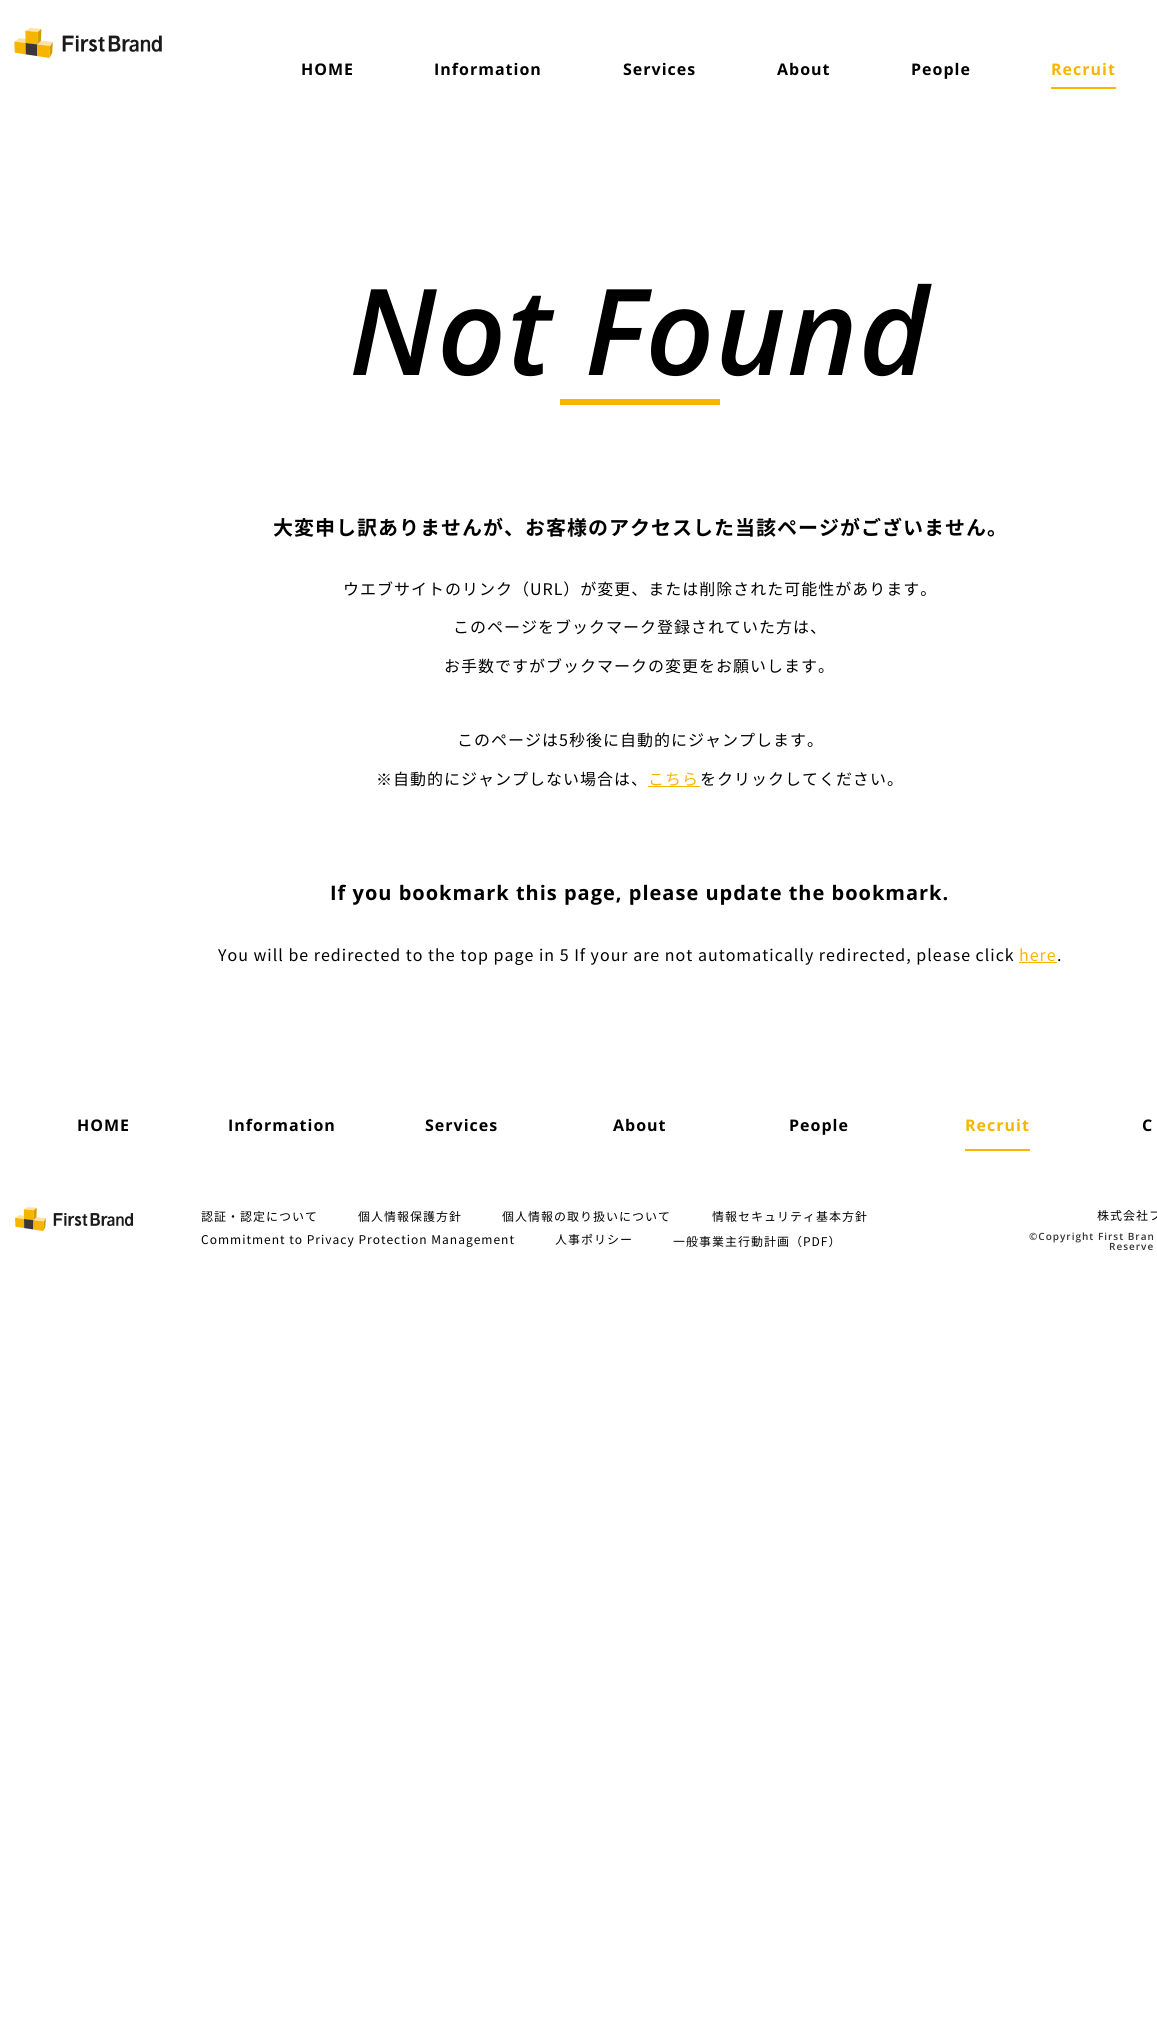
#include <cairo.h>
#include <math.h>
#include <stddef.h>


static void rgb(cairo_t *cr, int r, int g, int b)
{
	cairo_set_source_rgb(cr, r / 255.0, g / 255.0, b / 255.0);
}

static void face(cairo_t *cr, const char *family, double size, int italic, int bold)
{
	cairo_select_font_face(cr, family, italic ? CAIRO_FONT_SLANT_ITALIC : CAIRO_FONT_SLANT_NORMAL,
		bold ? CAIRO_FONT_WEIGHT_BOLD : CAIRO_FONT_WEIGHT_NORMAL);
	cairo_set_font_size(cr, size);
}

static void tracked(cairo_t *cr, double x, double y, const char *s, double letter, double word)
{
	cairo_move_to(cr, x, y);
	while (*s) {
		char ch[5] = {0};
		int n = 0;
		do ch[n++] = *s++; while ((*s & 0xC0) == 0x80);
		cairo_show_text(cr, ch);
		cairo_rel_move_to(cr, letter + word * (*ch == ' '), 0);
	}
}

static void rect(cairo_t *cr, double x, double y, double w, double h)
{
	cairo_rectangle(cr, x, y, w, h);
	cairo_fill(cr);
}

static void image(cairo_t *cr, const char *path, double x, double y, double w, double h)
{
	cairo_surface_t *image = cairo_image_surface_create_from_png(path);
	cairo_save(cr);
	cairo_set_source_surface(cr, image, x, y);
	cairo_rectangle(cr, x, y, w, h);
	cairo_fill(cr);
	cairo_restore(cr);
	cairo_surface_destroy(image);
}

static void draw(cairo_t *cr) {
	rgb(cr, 255, 255, 255);
	cairo_paint(cr);
	image(cr, "image0.png", 14, 28, 148, 30);
	face(cr, "Open Sans", 16, 0, 1);
	rgb(cr, 0, 0, 0);
	tracked(cr, 301, 75, "HOME", 1, 0);
	tracked(cr, 434, 75, "Information", 1, 0);
	tracked(cr, 623, 75, "Services", 1, 0);
	tracked(cr, 777, 75, "About", 1, 0);
	tracked(cr, 911, 75, "People", 1, 0);
	rgb(cr, 248, 181, 0);
	rect(cr, 1051, 87, 65, 2);
	tracked(cr, 1051, 75, "Recruit", 1, 0);
	face(cr, "Open Sans SemiBold", 120, 1, 0);
	rgb(cr, 0, 0, 0);
	tracked(cr, 349, 375, "Not Found", 1, 0);
	rgb(cr, 248, 181, 0);
	rect(cr, 560, 399, 160, 6);
	face(cr, "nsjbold", 20, 0, 1);
	rgb(cr, 0, 0, 0);
	tracked(cr, 273, 535, "大変申し訳ありませんが、お客様のアクセスした当該ページがございません。", 1, 0);
	face(cr, "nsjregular", 16, 0, 0);
	tracked(cr, 343, 595, "ウエブサイトのリンク（URL）が変更、または削除された可能性があります。", 1, 0);
	tracked(cr, 453, 633, "このページをブックマーク登録されていた方は、", 1, 0);
	tracked(cr, 444, 672, "お手数ですがブックマークの変更をお願いします。", 1, 0);
	tracked(cr, 457, 746, "このページは5秒後に自動的にジャンプします。", 1, 0);
	face(cr, "WenQuanYi Zen Hei Medium", 16, 0, 0);
	tracked(cr, 376, 785, "※", 1, 0);
	face(cr, "nsjregular", 16, 0, 0);
	tracked(cr, 393, 785, "自動的にジャンプしない場合は、", 1, 0);
	rgb(cr, 248, 181, 0);
	tracked(cr, 648, 785, "こちら", 1, 0);
	rect(cr, 648, 786, 52, 1);
	rgb(cr, 0, 0, 0);
	tracked(cr, 700, 785, "をクリックしてください。", 1, 0);
	face(cr, "Open Sans", 20, 0, 1);
	tracked(cr, 330, 900, "If you bookmark this page, please update the bookmark.", 1, 0);
	face(cr, "nsjregular", 16, 0, 0);
	tracked(cr, 218, 961, "You will be redirected to the top page in 5 If your are not automatically redirected, please click", 1, 0);
	rgb(cr, 248, 181, 0);
	tracked(cr, 1019, 961, "here", 1, 0);
	rect(cr, 1019, 962, 38, 1);
	rgb(cr, 0, 0, 0);
	tracked(cr, 1057, 961, ".", 1, 0);
	face(cr, "Open Sans", 16, 0, 1);
	tracked(cr, 77, 1131, "HOME", 1, 0);
	tracked(cr, 228, 1131, "Information", 1, 0);
	tracked(cr, 425, 1131, "Services", 1, 0);
	tracked(cr, 613, 1131, "About", 1, 0);
	tracked(cr, 789, 1131, "People", 1, 0);
	rgb(cr, 248, 181, 0);
	rect(cr, 965, 1149, 65, 2);
	tracked(cr, 965, 1131, "Recruit", 1, 0);
	rgb(cr, 0, 0, 0);
	tracked(cr, 1142, 1131, "C", 1, 0);
	image(cr, "image1.png", 15, 1207, 119, 24);
	face(cr, "nsjregular", 12, 0, 0);
	tracked(cr, 201, 1221, "認証・認定について", 1, 0);
	tracked(cr, 358, 1221, "個人情報保護方針", 1, 0);
	tracked(cr, 502, 1221, "個人情報の取り扱いについて", 1, 0);
	tracked(cr, 712, 1221, "情報セキュリティ基本方針", 1, 0);
	tracked(cr, 201, 1244, "Commitment to Privacy Protection Management", 1, 0);
	tracked(cr, 555, 1244, "人事ポリシー", 1, 0);
	tracked(cr, 673, 1246, "一般事業主行動計画（PDF）", 1, 0);
	tracked(cr, 1097, 1220, "株式会社フ", 1, 0);
	face(cr, "Open Sans SemiBold", 10, 0, 0);
	rgb(cr, 51, 51, 51);
	tracked(cr, 1029, 1240, "©Copyright First Bran", 1, 0);
	tracked(cr, 1109, 1250, "Reserve", 1, 0);
}

int main(void) {
	cairo_surface_t *surface = cairo_image_surface_create(CAIRO_FORMAT_RGB24, 1157, 2024);
	cairo_t *cr = cairo_create(surface);
	cairo_font_options_t *options = cairo_font_options_create();
	cairo_font_options_set_hint_metrics(options, CAIRO_HINT_METRICS_OFF);
	cairo_font_options_set_hint_style(options, CAIRO_HINT_STYLE_NONE);
	cairo_set_font_options(cr, options);
	cairo_set_miter_limit(cr, 4);
	draw(cr);
	cairo_surface_write_to_png(surface, "render.png");
	cairo_font_options_destroy(options);
	cairo_destroy(cr);
	cairo_surface_destroy(surface);
	return 0;
}
